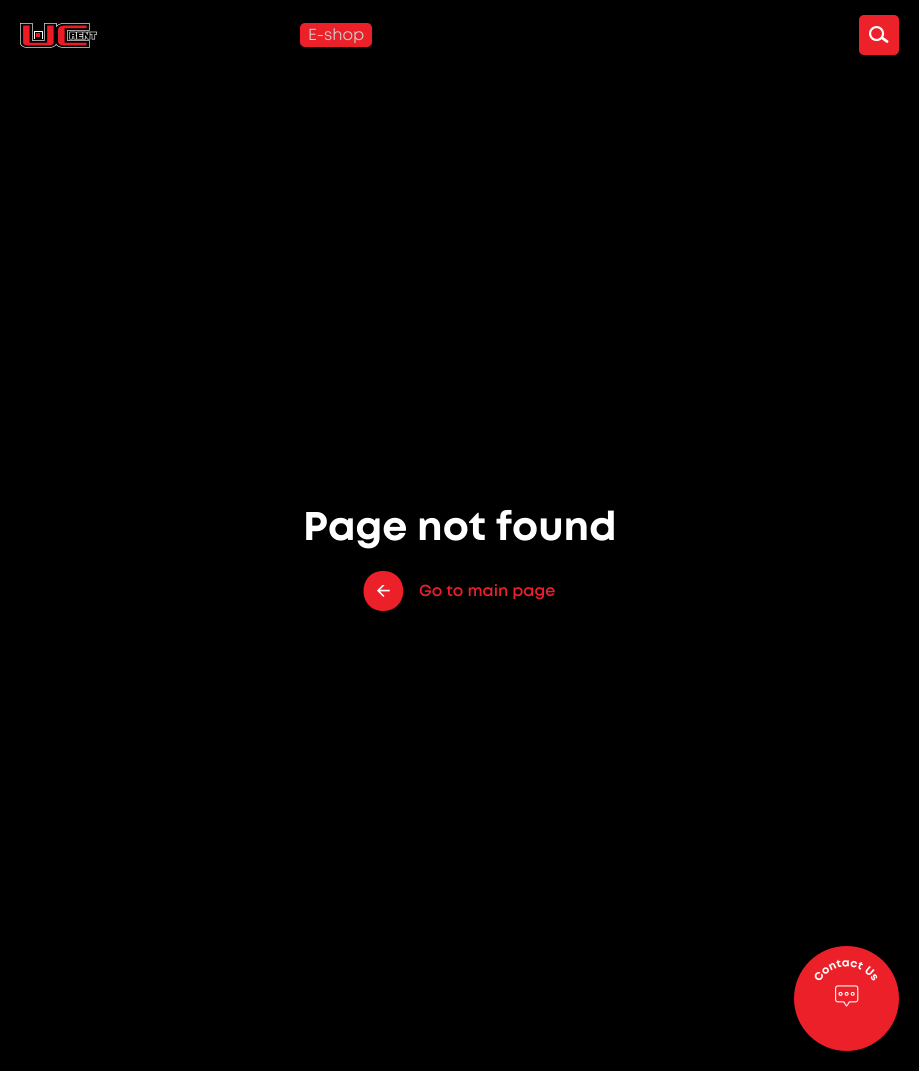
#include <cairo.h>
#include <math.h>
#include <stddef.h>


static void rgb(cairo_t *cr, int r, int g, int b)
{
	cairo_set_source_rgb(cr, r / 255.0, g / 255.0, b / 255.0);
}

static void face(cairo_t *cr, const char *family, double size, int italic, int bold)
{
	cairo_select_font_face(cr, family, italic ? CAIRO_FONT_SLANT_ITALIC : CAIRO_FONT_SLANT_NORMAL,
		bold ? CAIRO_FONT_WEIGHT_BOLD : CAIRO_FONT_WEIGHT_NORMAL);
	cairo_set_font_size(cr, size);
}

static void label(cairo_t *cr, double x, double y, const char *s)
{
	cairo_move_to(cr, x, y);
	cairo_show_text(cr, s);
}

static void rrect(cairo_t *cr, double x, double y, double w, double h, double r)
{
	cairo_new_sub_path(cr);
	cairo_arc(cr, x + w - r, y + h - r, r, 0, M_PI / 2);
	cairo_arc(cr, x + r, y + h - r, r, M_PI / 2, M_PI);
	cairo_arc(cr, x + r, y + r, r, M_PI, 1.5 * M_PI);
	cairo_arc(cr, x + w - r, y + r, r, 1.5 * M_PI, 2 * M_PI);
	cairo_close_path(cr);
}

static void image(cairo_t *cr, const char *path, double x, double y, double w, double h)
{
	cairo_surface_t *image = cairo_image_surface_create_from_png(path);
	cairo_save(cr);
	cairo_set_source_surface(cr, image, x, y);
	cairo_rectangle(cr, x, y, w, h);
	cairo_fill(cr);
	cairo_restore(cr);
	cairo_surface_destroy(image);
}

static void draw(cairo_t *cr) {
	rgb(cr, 0, 0, 0);
	cairo_paint(cr);
	image(cr, "image0.png", 20, 23, 77, 25);
	rgb(cr, 236, 32, 41);
	rrect(cr, 300, 23, 72, 24, 5);
	cairo_fill(cr);
	face(cr, "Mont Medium", 16, 0, 0);
	rgb(cr, 210, 210, 210);
	label(cr, 308, 40, "E-shop");
	rgb(cr, 237, 33, 41);
	rrect(cr, 859, 15, 40, 40, 5);
	cairo_fill(cr);
	image(cr, "image1.png", 869, 26, 20, 17);
	face(cr, "Mont", 40, 0, 1);
	rgb(cr, 255, 255, 255);
	label(cr, 303, 540, "Page not found");
	rgb(cr, 236, 32, 41);
	cairo_new_path(cr);
	cairo_move_to(cr, 383, 611);
	cairo_curve_to(cr, 357, 611, 357, 571, 383, 571);
	cairo_curve_to(cr, 410, 571, 410, 611, 383, 611);
	cairo_close_path(cr);
	cairo_fill(cr);
	image(cr, "image2.png", 377, 585, 13, 12);
	face(cr, "Mont SemiBold", 16, 0, 0);
	label(cr, 419, 596, "Go to main page");
	cairo_new_path(cr);
	cairo_arc(cr, 846.5, 998.5, 52.5, 0, 2 * M_PI);
	cairo_fill(cr);
	image(cr, "image3.png", 814, 959, 64, 48);
}

int main(void) {
	cairo_surface_t *surface = cairo_image_surface_create(CAIRO_FORMAT_RGB24, 919, 1071);
	cairo_t *cr = cairo_create(surface);
	cairo_font_options_t *options = cairo_font_options_create();
	cairo_font_options_set_hint_metrics(options, CAIRO_HINT_METRICS_OFF);
	cairo_font_options_set_hint_style(options, CAIRO_HINT_STYLE_NONE);
	cairo_set_font_options(cr, options);
	cairo_set_miter_limit(cr, 4);
	draw(cr);
	cairo_surface_write_to_png(surface, "render.png");
	cairo_font_options_destroy(options);
	cairo_destroy(cr);
	cairo_surface_destroy(surface);
	return 0;
}
